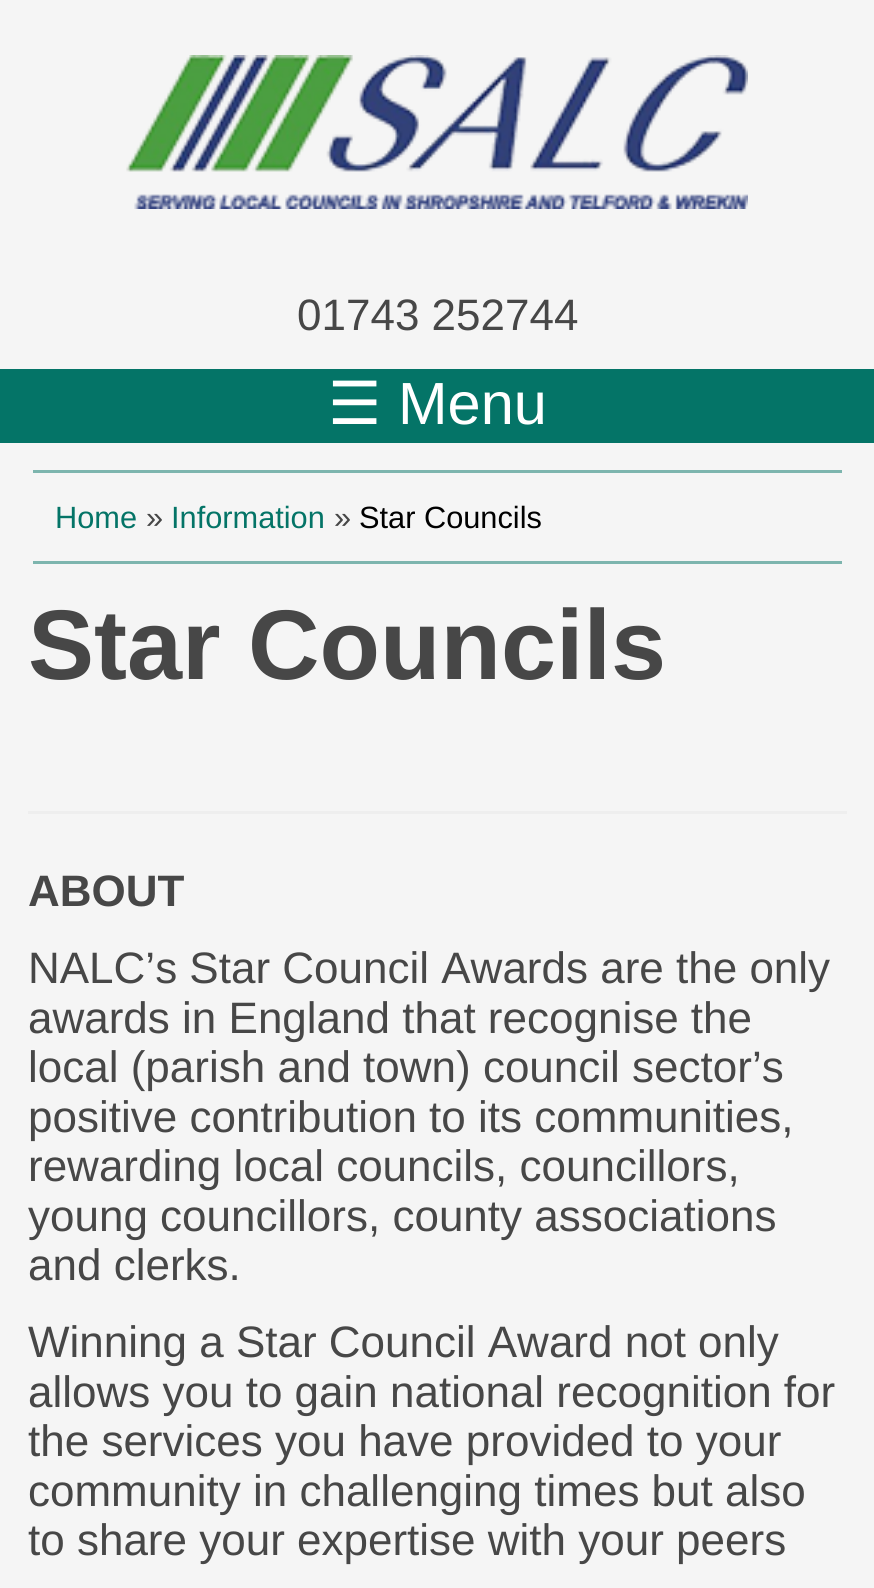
#include <cairo.h>
#include <math.h>
#include <stddef.h>


static void rgb(cairo_t *cr, int r, int g, int b)
{
	cairo_set_source_rgb(cr, r / 255.0, g / 255.0, b / 255.0);
}

static void face(cairo_t *cr, const char *family, double size, int italic, int bold)
{
	cairo_select_font_face(cr, family, italic ? CAIRO_FONT_SLANT_ITALIC : CAIRO_FONT_SLANT_NORMAL,
		bold ? CAIRO_FONT_WEIGHT_BOLD : CAIRO_FONT_WEIGHT_NORMAL);
	cairo_set_font_size(cr, size);
}

static void label(cairo_t *cr, double x, double y, const char *s)
{
	cairo_move_to(cr, x, y);
	cairo_show_text(cr, s);
}

static void rect(cairo_t *cr, double x, double y, double w, double h)
{
	cairo_rectangle(cr, x, y, w, h);
	cairo_fill(cr);
}

static void image(cairo_t *cr, const char *path, double x, double y, double w, double h)
{
	cairo_surface_t *image = cairo_image_surface_create_from_png(path);
	cairo_save(cr);
	cairo_set_source_surface(cr, image, x, y);
	cairo_rectangle(cr, x, y, w, h);
	cairo_fill(cr);
	cairo_restore(cr);
	cairo_surface_destroy(image);
}

static void draw(cairo_t *cr) {
	rgb(cr, 245, 245, 245);
	cairo_paint(cr);
	image(cr, "image0.png", 126, 55, 622, 154);
	face(cr, "Liberation Sans", 44, 0, 0);
	rgb(cr, 71, 71, 71);
	label(cr, 297, 330, "01743 252744");
	rgb(cr, 4, 116, 103);
	rect(cr, 0, 369, 874, 74);
	face(cr, "DejaVu Sans", 59.5, 0, 0);
	rgb(cr, 255, 255, 255);
	label(cr, 328, 424, "☰");
	face(cr, "Liberation Sans", 59.5, 0, 0);
	label(cr, 398, 424, "Menu");
	rgb(cr, 125, 181, 174);
	rect(cr, 33, 470, 809, 3);
	rect(cr, 33, 561, 809, 3);
	face(cr, "Liberation Sans", 30.75, 0, 0);
	rgb(cr, 4, 116, 103);
	label(cr, 55, 528, "Home");
	rgb(cr, 71, 71, 71);
	label(cr, 146, 528, "»");
	rgb(cr, 4, 116, 103);
	label(cr, 171, 528, "Information");
	rgb(cr, 71, 71, 71);
	label(cr, 334, 528, "»");
	rgb(cr, 0, 0, 0);
	label(cr, 359, 528, "Star Councils");
	face(cr, "Liberation Sans", 99, 0, 1);
	rgb(cr, 71, 71, 71);
	label(cr, 28, 679, "Star Councils");
	rgb(cr, 238, 238, 238);
	rect(cr, 28, 811, 819, 3);
	face(cr, "Liberation Sans", 44, 0, 1);
	rgb(cr, 71, 71, 71);
	label(cr, 28, 906, "ABOUT");
	face(cr, "Liberation Sans", 44, 0, 0);
	label(cr, 28, 983, "NALC’s Star Council Awards are the only");
	label(cr, 28, 1033, "awards in England that recognise the");
	label(cr, 28, 1082, "local (parish and town) council sector’s");
	label(cr, 28, 1132, "positive contribution to its communities,");
	label(cr, 28, 1181, "rewarding local councils, councillors,");
	label(cr, 28, 1231, "young councillors, county associations");
	label(cr, 28, 1280, "and clerks.");
	label(cr, 28, 1357, "Winning a Star Council Award not only");
	label(cr, 28, 1407, "allows you to gain national recognition for");
	label(cr, 28, 1456, "the services you have provided to your");
	label(cr, 28, 1506, "community in challenging times but also");
	label(cr, 28, 1555, "to share your expertise with your peers");
}

int main(void) {
	cairo_surface_t *surface = cairo_image_surface_create(CAIRO_FORMAT_RGB24, 874, 1588);
	cairo_t *cr = cairo_create(surface);
	cairo_font_options_t *options = cairo_font_options_create();
	cairo_font_options_set_hint_metrics(options, CAIRO_HINT_METRICS_OFF);
	cairo_font_options_set_hint_style(options, CAIRO_HINT_STYLE_NONE);
	cairo_set_font_options(cr, options);
	cairo_set_miter_limit(cr, 4);
	draw(cr);
	cairo_surface_write_to_png(surface, "render.png");
	cairo_font_options_destroy(options);
	cairo_destroy(cr);
	cairo_surface_destroy(surface);
	return 0;
}
